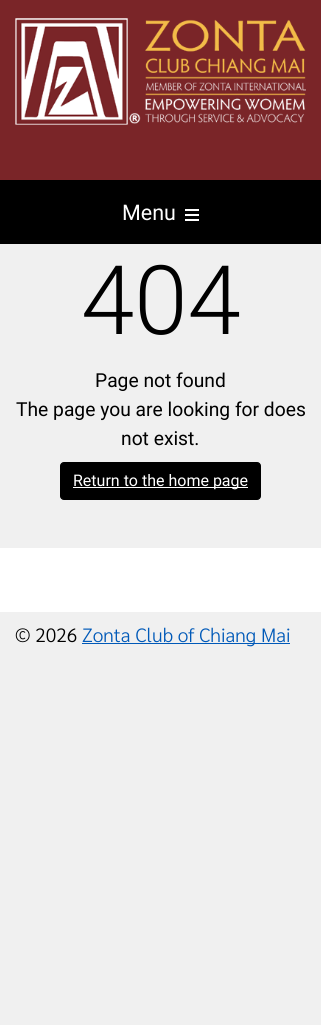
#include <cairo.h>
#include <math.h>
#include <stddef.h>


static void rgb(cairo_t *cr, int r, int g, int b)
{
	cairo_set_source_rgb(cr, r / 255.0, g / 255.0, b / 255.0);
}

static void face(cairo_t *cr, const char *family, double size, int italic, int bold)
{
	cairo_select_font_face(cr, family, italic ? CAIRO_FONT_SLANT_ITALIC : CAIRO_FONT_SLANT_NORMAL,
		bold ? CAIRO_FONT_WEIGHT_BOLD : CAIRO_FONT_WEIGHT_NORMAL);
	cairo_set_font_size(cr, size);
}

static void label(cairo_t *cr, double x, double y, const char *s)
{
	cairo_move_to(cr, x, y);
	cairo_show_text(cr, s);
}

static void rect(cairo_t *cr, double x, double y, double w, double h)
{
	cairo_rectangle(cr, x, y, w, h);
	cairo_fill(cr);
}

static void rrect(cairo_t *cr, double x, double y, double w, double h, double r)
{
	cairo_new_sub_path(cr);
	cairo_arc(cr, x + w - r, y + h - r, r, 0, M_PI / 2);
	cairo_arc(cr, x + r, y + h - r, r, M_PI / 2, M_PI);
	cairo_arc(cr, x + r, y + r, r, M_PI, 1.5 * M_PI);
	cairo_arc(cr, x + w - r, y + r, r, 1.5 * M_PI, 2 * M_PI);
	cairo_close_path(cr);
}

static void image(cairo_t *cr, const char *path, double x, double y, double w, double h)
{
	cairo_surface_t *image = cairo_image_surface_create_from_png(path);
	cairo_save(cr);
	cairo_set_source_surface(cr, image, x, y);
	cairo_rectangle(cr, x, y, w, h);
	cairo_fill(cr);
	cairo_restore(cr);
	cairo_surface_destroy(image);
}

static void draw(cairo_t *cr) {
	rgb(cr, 240, 240, 240);
	cairo_paint(cr);
	rgb(cr, 122, 37, 40);
	rect(cr, 0, 0, 321, 180);
	image(cr, "image0.png", 15, 18, 291, 107);
	rgb(cr, 0, 0, 0);
	rect(cr, 0, 180, 321, 64);
	face(cr, "Roboto", 21.5, 0, 0);
	rgb(cr, 255, 255, 255);
	label(cr, 122, 220, "Menu");
	image(cr, "image1.png", 185, 209, 14, 12);
	face(cr, "Roboto Light", 96, 0, 0);
	rgb(cr, 0, 0, 0);
	label(cr, 81, 334, "404");
	face(cr, "Roboto", 19.25, 0, 0);
	label(cr, 95, 387, "Page not found");
	label(cr, 16, 416, "The page you are looking for does");
	label(cr, 121, 445, "not exist.");
	rrect(cr, 60.5, 462.5, 200, 37, 3.5);
	cairo_fill_preserve(cr);
	cairo_set_line_width(cr, 1);
	cairo_stroke(cr);
	rgb(cr, 255, 255, 255);
	rect(cr, 73, 487, 175, 1);
	face(cr, "Roboto", 16, 0, 0);
	label(cr, 73, 486, "Return to the home page");
	rect(cr, 0, 548, 321, 64);
	face(cr, "Sarabun Light", 19.25, 0, 0);
	rgb(cr, 0, 0, 0);
	label(cr, 15, 642, "© 2026");
	rgb(cr, 0, 89, 184);
	rect(cr, 82, 643, 208, 1);
	label(cr, 82, 642, "Zonta Club of Chiang Mai");
}

int main(void) {
	cairo_surface_t *surface = cairo_image_surface_create(CAIRO_FORMAT_RGB24, 321, 1025);
	cairo_t *cr = cairo_create(surface);
	cairo_font_options_t *options = cairo_font_options_create();
	cairo_font_options_set_hint_metrics(options, CAIRO_HINT_METRICS_OFF);
	cairo_font_options_set_hint_style(options, CAIRO_HINT_STYLE_NONE);
	cairo_set_font_options(cr, options);
	cairo_set_miter_limit(cr, 4);
	draw(cr);
	cairo_surface_write_to_png(surface, "render.png");
	cairo_font_options_destroy(options);
	cairo_destroy(cr);
	cairo_surface_destroy(surface);
	return 0;
}
